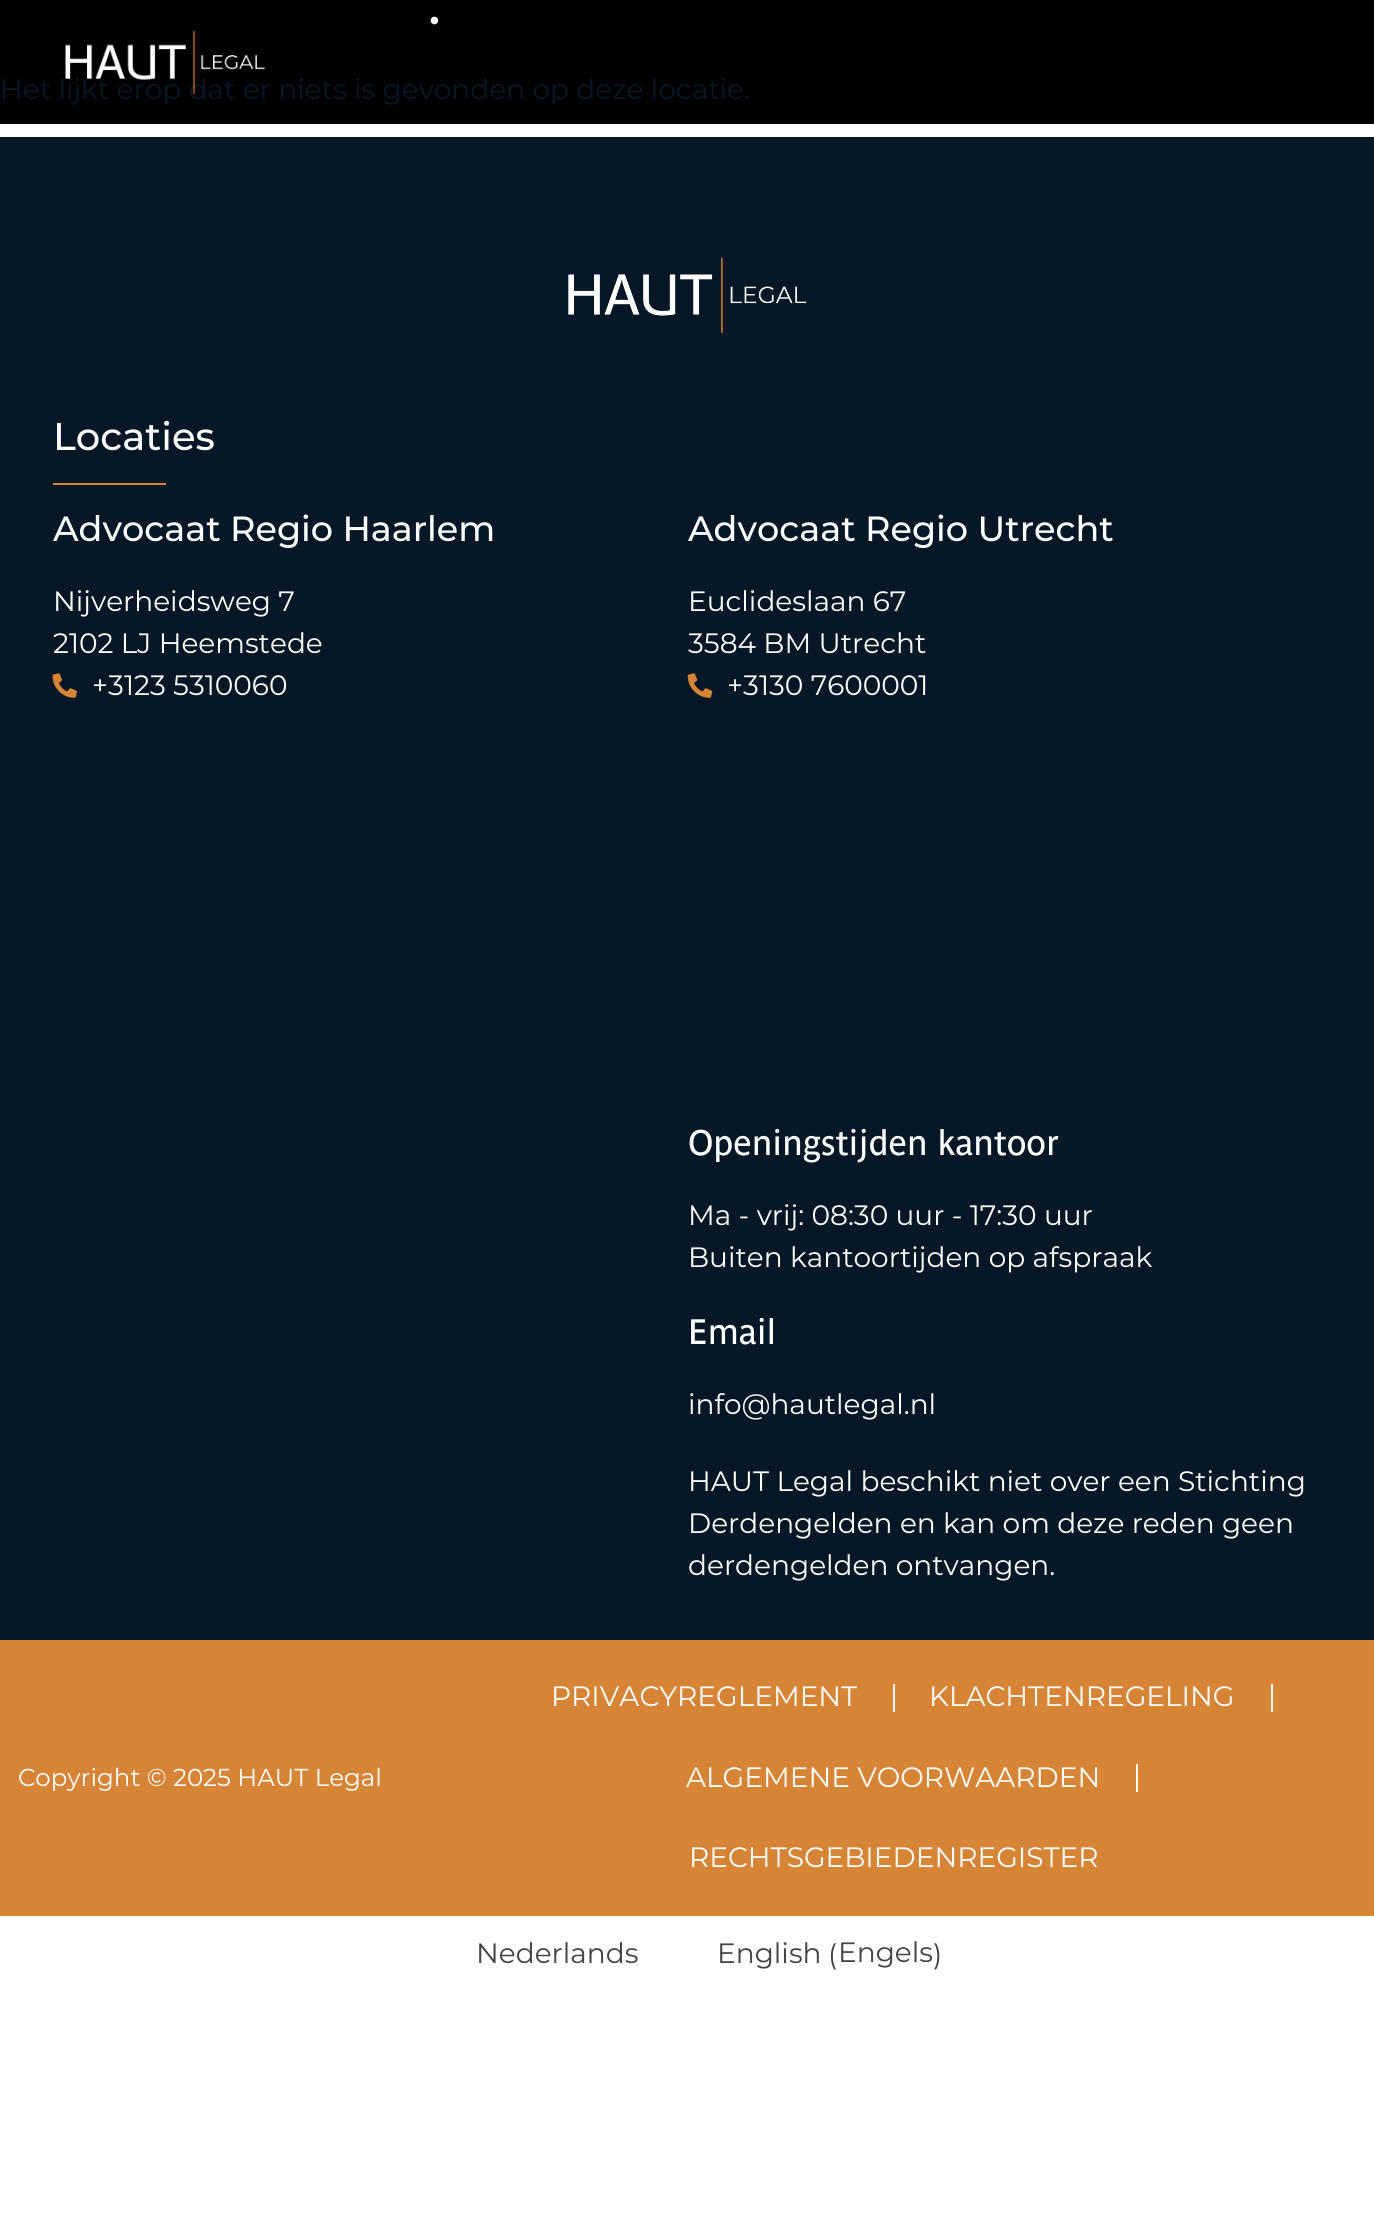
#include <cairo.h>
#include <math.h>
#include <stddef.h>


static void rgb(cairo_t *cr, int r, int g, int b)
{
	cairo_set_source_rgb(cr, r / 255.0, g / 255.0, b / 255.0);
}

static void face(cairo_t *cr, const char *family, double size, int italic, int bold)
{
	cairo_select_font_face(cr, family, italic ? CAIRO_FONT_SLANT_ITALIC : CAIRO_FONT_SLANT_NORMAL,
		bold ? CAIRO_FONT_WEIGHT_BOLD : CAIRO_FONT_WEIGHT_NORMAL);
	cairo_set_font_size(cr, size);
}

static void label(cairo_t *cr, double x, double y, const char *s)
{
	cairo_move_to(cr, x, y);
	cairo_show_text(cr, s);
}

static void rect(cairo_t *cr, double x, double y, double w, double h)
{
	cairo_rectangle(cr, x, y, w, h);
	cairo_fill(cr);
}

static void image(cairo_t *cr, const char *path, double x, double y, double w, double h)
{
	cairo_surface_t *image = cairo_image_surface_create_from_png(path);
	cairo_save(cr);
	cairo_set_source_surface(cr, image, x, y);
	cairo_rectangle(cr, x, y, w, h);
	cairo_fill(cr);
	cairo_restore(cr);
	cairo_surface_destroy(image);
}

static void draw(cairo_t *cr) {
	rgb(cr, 255, 255, 255);
	cairo_paint(cr);
	rgb(cr, 0, 0, 0);
	rect(cr, 0, 0, 1374, 124);
	face(cr, "Montserrat", 28, 0, 0);
	rgb(cr, 8, 23, 37);
	label(cr, 0, 99, "Het lijkt erop dat er niets is gevonden op deze locatie.");
	image(cr, "image0.png", 65, 30, 200, 65);
	face(cr, "Montserrat", 70, 0, 0);
	rgb(cr, 255, 255, 255);
	label(cr, 427, 24, ".");
	rgb(cr, 8, 23, 37);
	rect(cr, 0, 137, 1374, 1503);
	image(cr, "image1.png", 568, 257, 239, 76);
	face(cr, "Montserrat Medium", 38.5, 0, 0);
	rgb(cr, 255, 255, 255);
	label(cr, 53, 450, "Locaties");
	rgb(cr, 214, 133, 54);
	rect(cr, 53, 483, 113, 2);
	face(cr, "Montserrat Medium", 35, 0, 0);
	rgb(cr, 255, 255, 255);
	label(cr, 53, 541, "Advocaat Regio Haarlem");
	face(cr, "Montserrat", 28, 0, 0);
	label(cr, 53, 611, "Nijverheidsweg 7");
	label(cr, 53, 653, "2102 LJ Heemstede");
	image(cr, "image2.png", 52, 673, 25, 25);
	label(cr, 92, 695, "+3123 5310060");
	face(cr, "Montserrat Medium", 35, 0, 0);
	label(cr, 688, 541, "Advocaat Regio Utrecht");
	face(cr, "Montserrat", 28, 0, 0);
	label(cr, 688, 611, "Euclideslaan 67");
	label(cr, 688, 653, "3584 BM Utrecht");
	image(cr, "image3.png", 687, 673, 26, 25);
	label(cr, 727, 695, "+3130 7600001");
	face(cr, "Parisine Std", 35, 0, 0);
	label(cr, 688, 1155, "Openingstijden kantoor");
	face(cr, "Montserrat", 28, 0, 0);
	label(cr, 688, 1225, "Ma - vrij: 08:30 uur - 17:30 uur");
	label(cr, 688, 1267, "Buiten kantoortijden op afspraak");
	face(cr, "Parisine Std", 35, 0, 0);
	label(cr, 688, 1344, "Email");
	face(cr, "Montserrat", 28, 0, 0);
	label(cr, 688, 1414, "info@hautlegal.nl");
	label(cr, 688, 1491, "HAUT Legal beschikt niet over een Stichting");
	label(cr, 688, 1533, "Derdengelden en kan om deze reden geen");
	label(cr, 688, 1575, "derdengelden ontvangen.");
	rgb(cr, 214, 133, 54);
	rect(cr, 0, 1640, 1374, 276);
	face(cr, "Montserrat", 24.5, 0, 0);
	rgb(cr, 255, 255, 255);
	label(cr, 18, 1786, "Copyright © 2025 HAUT Legal");
	face(cr, "Montserrat", 28, 0, 0);
	label(cr, 551, 1706, "PRIVACYREGLEMENT");
	rect(cr, 893, 1684, 2, 28);
	label(cr, 929, 1706, "KLACHTENREGELING");
	rect(cr, 1271, 1684, 2, 28);
	label(cr, 686, 1787, "ALGEMENE VOORWAARDEN");
	rect(cr, 1136, 1764, 2, 28);
	label(cr, 689, 1867, "RECHTSGEBIEDENREGISTER");
	rgb(cr, 68, 68, 68);
	label(cr, 476, 1963, "Nederlands");
	label(cr, 717, 1963, "English");
	label(cr, 828, 1964, "(");
	label(cr, 838, 1962, "Engels");
	label(cr, 933, 1964, ")");
}

int main(void) {
	cairo_surface_t *surface = cairo_image_surface_create(CAIRO_FORMAT_RGB24, 1374, 2221);
	cairo_t *cr = cairo_create(surface);
	cairo_font_options_t *options = cairo_font_options_create();
	cairo_font_options_set_hint_metrics(options, CAIRO_HINT_METRICS_OFF);
	cairo_font_options_set_hint_style(options, CAIRO_HINT_STYLE_NONE);
	cairo_set_font_options(cr, options);
	cairo_set_miter_limit(cr, 4);
	draw(cr);
	cairo_surface_write_to_png(surface, "render.png");
	cairo_font_options_destroy(options);
	cairo_destroy(cr);
	cairo_surface_destroy(surface);
	return 0;
}
